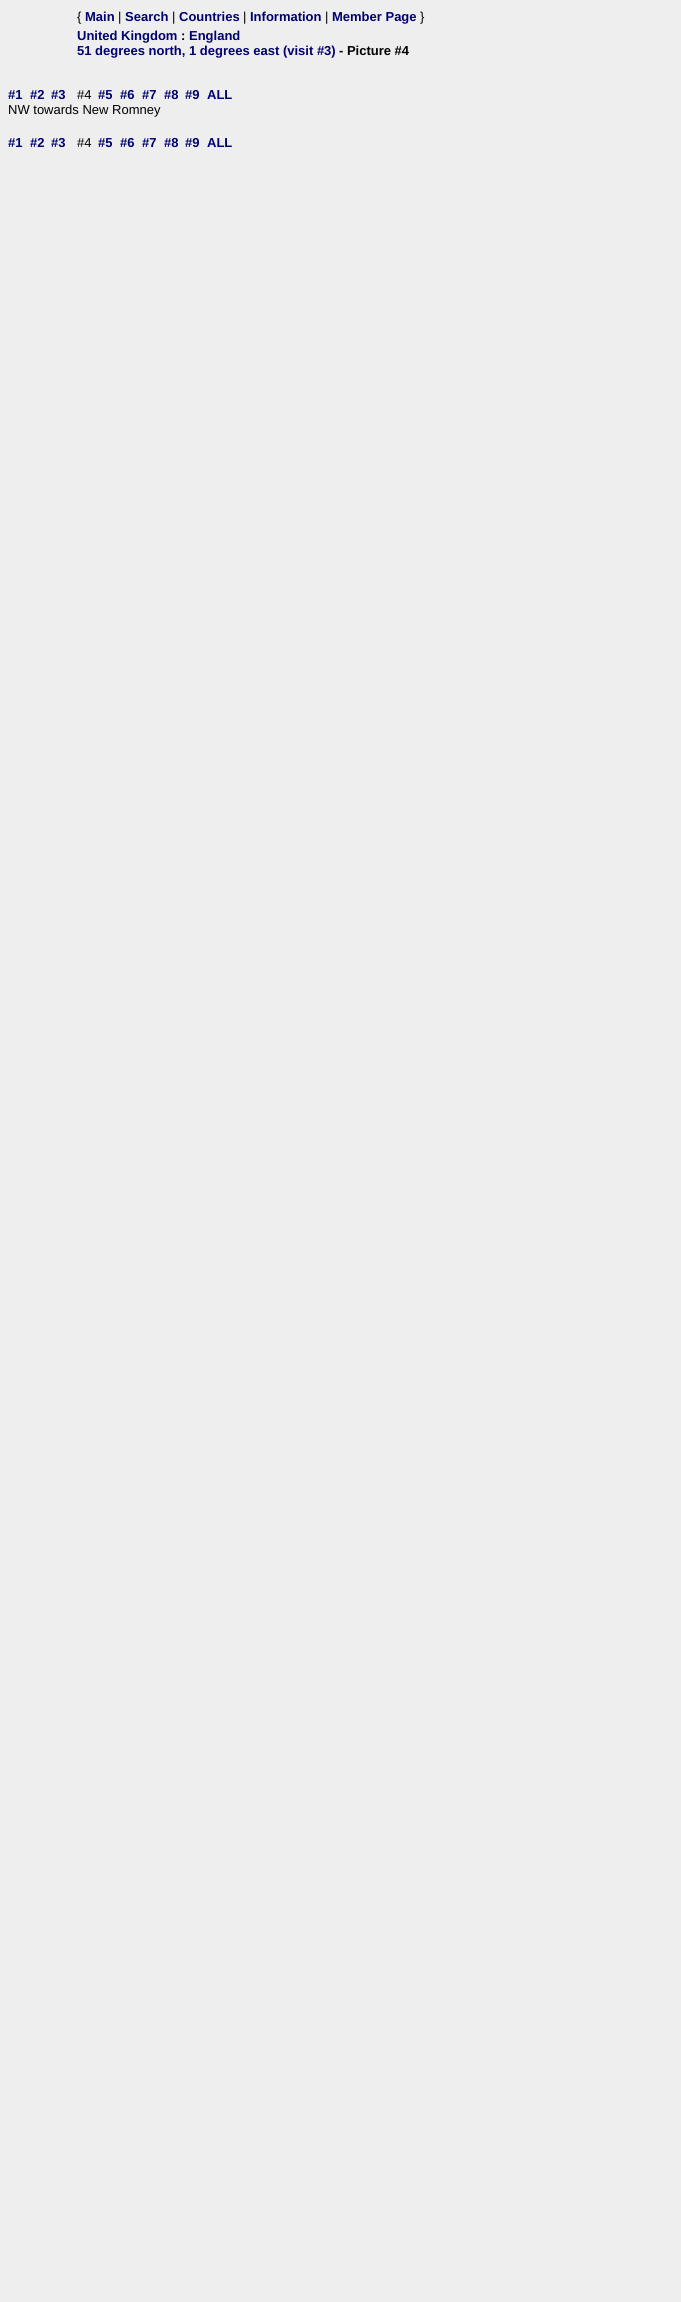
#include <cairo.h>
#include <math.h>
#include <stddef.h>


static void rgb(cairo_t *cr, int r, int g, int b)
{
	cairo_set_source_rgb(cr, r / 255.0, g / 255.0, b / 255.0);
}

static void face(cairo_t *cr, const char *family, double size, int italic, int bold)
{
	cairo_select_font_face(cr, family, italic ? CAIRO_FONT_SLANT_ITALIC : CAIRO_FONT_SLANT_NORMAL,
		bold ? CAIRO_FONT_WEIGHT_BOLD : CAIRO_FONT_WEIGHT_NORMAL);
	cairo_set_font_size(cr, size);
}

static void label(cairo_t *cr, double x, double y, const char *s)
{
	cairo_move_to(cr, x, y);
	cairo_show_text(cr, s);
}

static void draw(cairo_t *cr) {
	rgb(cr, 238, 238, 238);
	cairo_paint(cr);
	face(cr, "Liberation Sans", 13, 0, 0);
	rgb(cr, 0, 0, 0);
	label(cr, 77, 21, "{");
	face(cr, "Liberation Sans", 13, 0, 1);
	rgb(cr, 0, 0, 112);
	label(cr, 85, 21, "Main");
	face(cr, "Liberation Sans", 13, 0, 0);
	rgb(cr, 0, 0, 0);
	label(cr, 118, 21, "|");
	face(cr, "Liberation Sans", 13, 0, 1);
	rgb(cr, 0, 0, 112);
	label(cr, 125, 21, "Search");
	face(cr, "Liberation Sans", 13, 0, 0);
	rgb(cr, 0, 0, 0);
	label(cr, 172, 21, "|");
	face(cr, "Liberation Sans", 13, 0, 1);
	rgb(cr, 0, 0, 112);
	label(cr, 179, 21, "Countries");
	face(cr, "Liberation Sans", 13, 0, 0);
	rgb(cr, 0, 0, 0);
	label(cr, 243, 21, "|");
	face(cr, "Liberation Sans", 13, 0, 1);
	rgb(cr, 0, 0, 112);
	label(cr, 250, 21, "Information");
	face(cr, "Liberation Sans", 13, 0, 0);
	rgb(cr, 0, 0, 0);
	label(cr, 325, 21, "|");
	face(cr, "Liberation Sans", 13, 0, 1);
	rgb(cr, 0, 0, 112);
	label(cr, 332, 21, "Member Page");
	face(cr, "Liberation Sans", 13, 0, 0);
	rgb(cr, 0, 0, 0);
	label(cr, 420, 21, "}");
	face(cr, "Liberation Sans", 13, 0, 1);
	rgb(cr, 0, 0, 112);
	label(cr, 77, 40, "United Kingdom");
	rgb(cr, 0, 0, 0);
	label(cr, 181, 40, ":");
	rgb(cr, 0, 0, 112);
	label(cr, 189, 40, "England");
	label(cr, 77, 55, "51 degrees north, 1 degrees east (visit #3)");
	rgb(cr, 0, 0, 0);
	label(cr, 339, 55, "- Picture #4");
	rgb(cr, 0, 0, 112);
	label(cr, 8, 99, "#1");
	label(cr, 30, 99, "#2");
	label(cr, 51, 99, "#3");
	face(cr, "Liberation Sans", 13, 0, 0);
	rgb(cr, 0, 0, 0);
	label(cr, 77, 99, "#4");
	face(cr, "Liberation Sans", 13, 0, 1);
	rgb(cr, 0, 0, 112);
	label(cr, 98, 99, "#5");
	label(cr, 120, 99, "#6");
	label(cr, 142, 99, "#7");
	label(cr, 164, 99, "#8");
	label(cr, 185, 99, "#9");
	label(cr, 207, 99, "ALL");
	face(cr, "Liberation Sans", 13, 0, 0);
	rgb(cr, 0, 0, 0);
	label(cr, 8, 114, "NW towards New Romney");
	face(cr, "Liberation Sans", 13, 0, 1);
	rgb(cr, 0, 0, 112);
	label(cr, 8, 147, "#1");
	label(cr, 30, 147, "#2");
	label(cr, 51, 147, "#3");
	face(cr, "Liberation Sans", 13, 0, 0);
	rgb(cr, 0, 0, 0);
	label(cr, 77, 147, "#4");
	face(cr, "Liberation Sans", 13, 0, 1);
	rgb(cr, 0, 0, 112);
	label(cr, 98, 147, "#5");
	label(cr, 120, 147, "#6");
	label(cr, 142, 147, "#7");
	label(cr, 164, 147, "#8");
	label(cr, 185, 147, "#9");
	label(cr, 207, 147, "ALL");
}

int main(void) {
	cairo_surface_t *surface = cairo_image_surface_create(CAIRO_FORMAT_RGB24, 681, 2302);
	cairo_t *cr = cairo_create(surface);
	cairo_font_options_t *options = cairo_font_options_create();
	cairo_font_options_set_hint_metrics(options, CAIRO_HINT_METRICS_OFF);
	cairo_font_options_set_hint_style(options, CAIRO_HINT_STYLE_NONE);
	cairo_set_font_options(cr, options);
	cairo_set_miter_limit(cr, 4);
	draw(cr);
	cairo_surface_write_to_png(surface, "render.png");
	cairo_font_options_destroy(options);
	cairo_destroy(cr);
	cairo_surface_destroy(surface);
	return 0;
}
